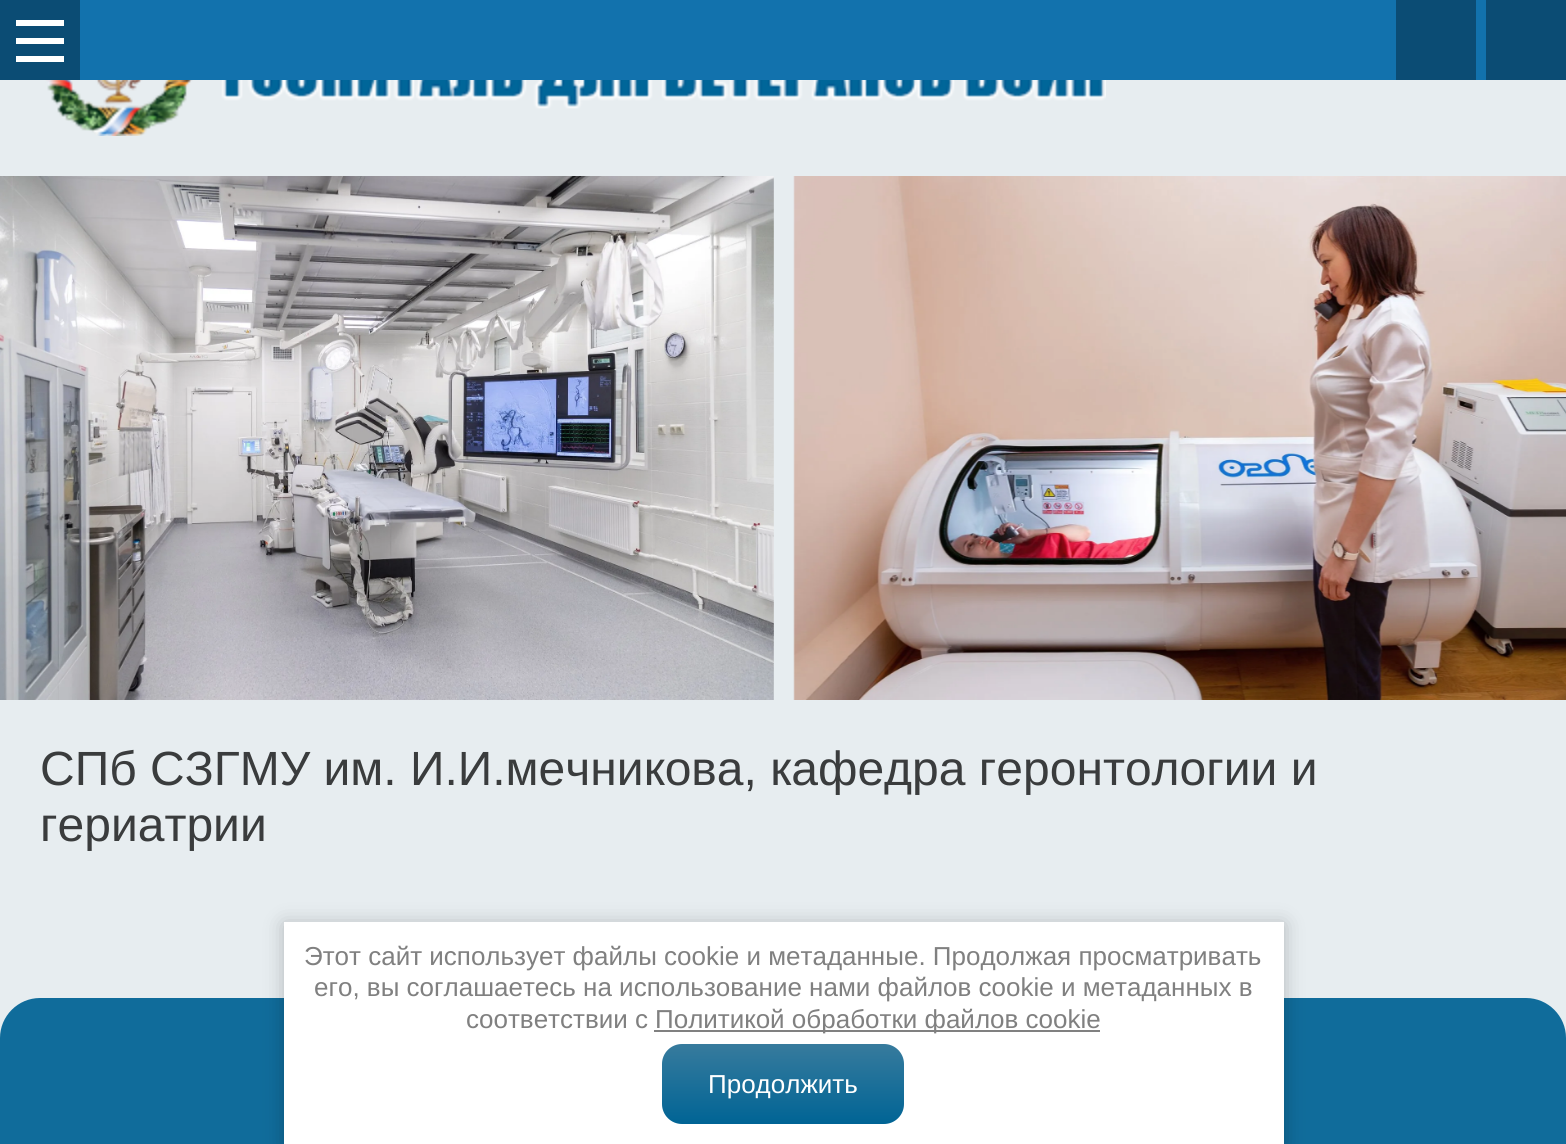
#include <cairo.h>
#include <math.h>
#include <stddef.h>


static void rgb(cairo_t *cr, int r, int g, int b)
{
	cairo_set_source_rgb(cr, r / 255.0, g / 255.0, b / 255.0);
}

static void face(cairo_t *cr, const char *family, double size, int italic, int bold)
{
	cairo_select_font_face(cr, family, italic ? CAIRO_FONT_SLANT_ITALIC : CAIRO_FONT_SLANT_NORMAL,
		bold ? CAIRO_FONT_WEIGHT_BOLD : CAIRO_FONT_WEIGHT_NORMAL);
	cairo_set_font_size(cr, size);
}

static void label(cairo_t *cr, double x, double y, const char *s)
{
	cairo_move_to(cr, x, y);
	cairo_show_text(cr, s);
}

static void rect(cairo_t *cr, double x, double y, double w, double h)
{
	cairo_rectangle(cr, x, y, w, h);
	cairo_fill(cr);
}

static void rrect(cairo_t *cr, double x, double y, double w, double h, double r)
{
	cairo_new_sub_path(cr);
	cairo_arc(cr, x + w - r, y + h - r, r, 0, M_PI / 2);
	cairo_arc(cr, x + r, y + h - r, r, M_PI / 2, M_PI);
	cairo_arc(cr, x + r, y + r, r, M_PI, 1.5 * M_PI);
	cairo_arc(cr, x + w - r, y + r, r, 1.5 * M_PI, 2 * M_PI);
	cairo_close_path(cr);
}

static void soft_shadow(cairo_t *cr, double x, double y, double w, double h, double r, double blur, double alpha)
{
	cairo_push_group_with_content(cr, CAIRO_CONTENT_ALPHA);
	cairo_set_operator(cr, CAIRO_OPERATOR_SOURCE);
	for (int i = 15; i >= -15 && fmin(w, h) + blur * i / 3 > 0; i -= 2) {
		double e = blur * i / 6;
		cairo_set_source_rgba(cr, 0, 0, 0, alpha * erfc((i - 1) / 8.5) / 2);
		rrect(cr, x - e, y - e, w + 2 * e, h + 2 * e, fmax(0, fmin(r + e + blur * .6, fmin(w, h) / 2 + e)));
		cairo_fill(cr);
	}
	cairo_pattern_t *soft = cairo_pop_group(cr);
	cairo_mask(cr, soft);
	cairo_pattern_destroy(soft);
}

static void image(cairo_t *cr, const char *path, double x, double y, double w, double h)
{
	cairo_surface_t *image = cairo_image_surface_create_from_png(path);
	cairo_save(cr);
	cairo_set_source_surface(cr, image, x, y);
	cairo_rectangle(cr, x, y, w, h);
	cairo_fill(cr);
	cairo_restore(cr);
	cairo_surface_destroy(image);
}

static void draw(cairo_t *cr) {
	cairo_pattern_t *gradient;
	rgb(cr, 231, 237, 240);
	cairo_paint(cr);
	rgb(cr, 11, 76, 116);
	rect(cr, 0, 0, 80, 80);
	rgb(cr, 255, 255, 255);
	rect(cr, 16, 20, 48, 6);
	rect(cr, 16, 56, 48, 6);
	rect(cr, 16, 38, 48, 6);
	rgb(cr, 18, 114, 173);
	rect(cr, 80, 0, 1406, 80);
	rgb(cr, 11, 76, 116);
	rect(cr, 1396, 0, 80, 80);
	rect(cr, 1486, 0, 80, 80);
	image(cr, "image0.png", 45, 80, 1061, 56);
	image(cr, "image1.png", 0, 176, 774, 524);
	image(cr, "image2.png", 793, 176, 773, 524);
	face(cr, "Liberation Sans", 48, 0, 0);
	rgb(cr, 58, 60, 61);
	label(cr, 40, 785, "СПб СЗГМУ им. И.И.мечникова, кафедра геронтологии и");
	label(cr, 40, 841, "гериатрии");
	rgb(cr, 16, 108, 155);
	cairo_new_path(cr);
	cairo_move_to(cr, 40, 998);
	cairo_line_to(cr, 1526, 998);
	cairo_curve_to(cr, 1548, 998, 1566, 1016, 1566, 1038);
	cairo_line_to(cr, 1566, 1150);
	cairo_line_to(cr, 0, 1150);
	cairo_line_to(cr, 0, 1038);
	cairo_curve_to(cr, 0, 1016, 18, 998, 40, 998);
	cairo_close_path(cr);
	cairo_fill(cr);
	rgb(cr, 0, 0, 0);
	soft_shadow(cr, 284, 924, 1000, 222, 0, 10, 0.23);
	rgb(cr, 255, 255, 255);
	rect(cr, 284, 922, 1000, 222);
	face(cr, "Liberation Sans", 26, 0, 0);
	rgb(cr, 128, 128, 128);
	label(cr, 304, 965, "Этот сайт использует файлы cookie и метаданные. Продолжая просматривать");
	label(cr, 314, 996, "его, вы соглашаетесь на использование нами файлов cookie и метаданных в");
	label(cr, 466, 1028, "соответствии с");
	rect(cr, 654, 1030, 446, 2);
	label(cr, 655, 1028, "Политикой обработки файлов cookie");
	gradient = cairo_pattern_create_linear(783, 1044, 783, 1124);
	cairo_pattern_add_color_stop_rgba(gradient, 0, 0.216, 0.482, 0.616, 1);
	cairo_pattern_add_color_stop_rgba(gradient, 1, 0, 0.392, 0.584, 1);
	cairo_set_source(cr, gradient);
	cairo_pattern_destroy(gradient);
	rrect(cr, 662, 1044, 242, 80, 20);
	cairo_fill(cr);
	rgb(cr, 255, 255, 255);
	label(cr, 708, 1093, "Продолжить");
}

int main(void) {
	cairo_surface_t *surface = cairo_image_surface_create(CAIRO_FORMAT_RGB24, 1566, 1144);
	cairo_t *cr = cairo_create(surface);
	cairo_font_options_t *options = cairo_font_options_create();
	cairo_font_options_set_hint_metrics(options, CAIRO_HINT_METRICS_OFF);
	cairo_font_options_set_hint_style(options, CAIRO_HINT_STYLE_NONE);
	cairo_set_font_options(cr, options);
	cairo_set_miter_limit(cr, 4);
	draw(cr);
	cairo_surface_write_to_png(surface, "render.png");
	cairo_font_options_destroy(options);
	cairo_destroy(cr);
	cairo_surface_destroy(surface);
	return 0;
}
